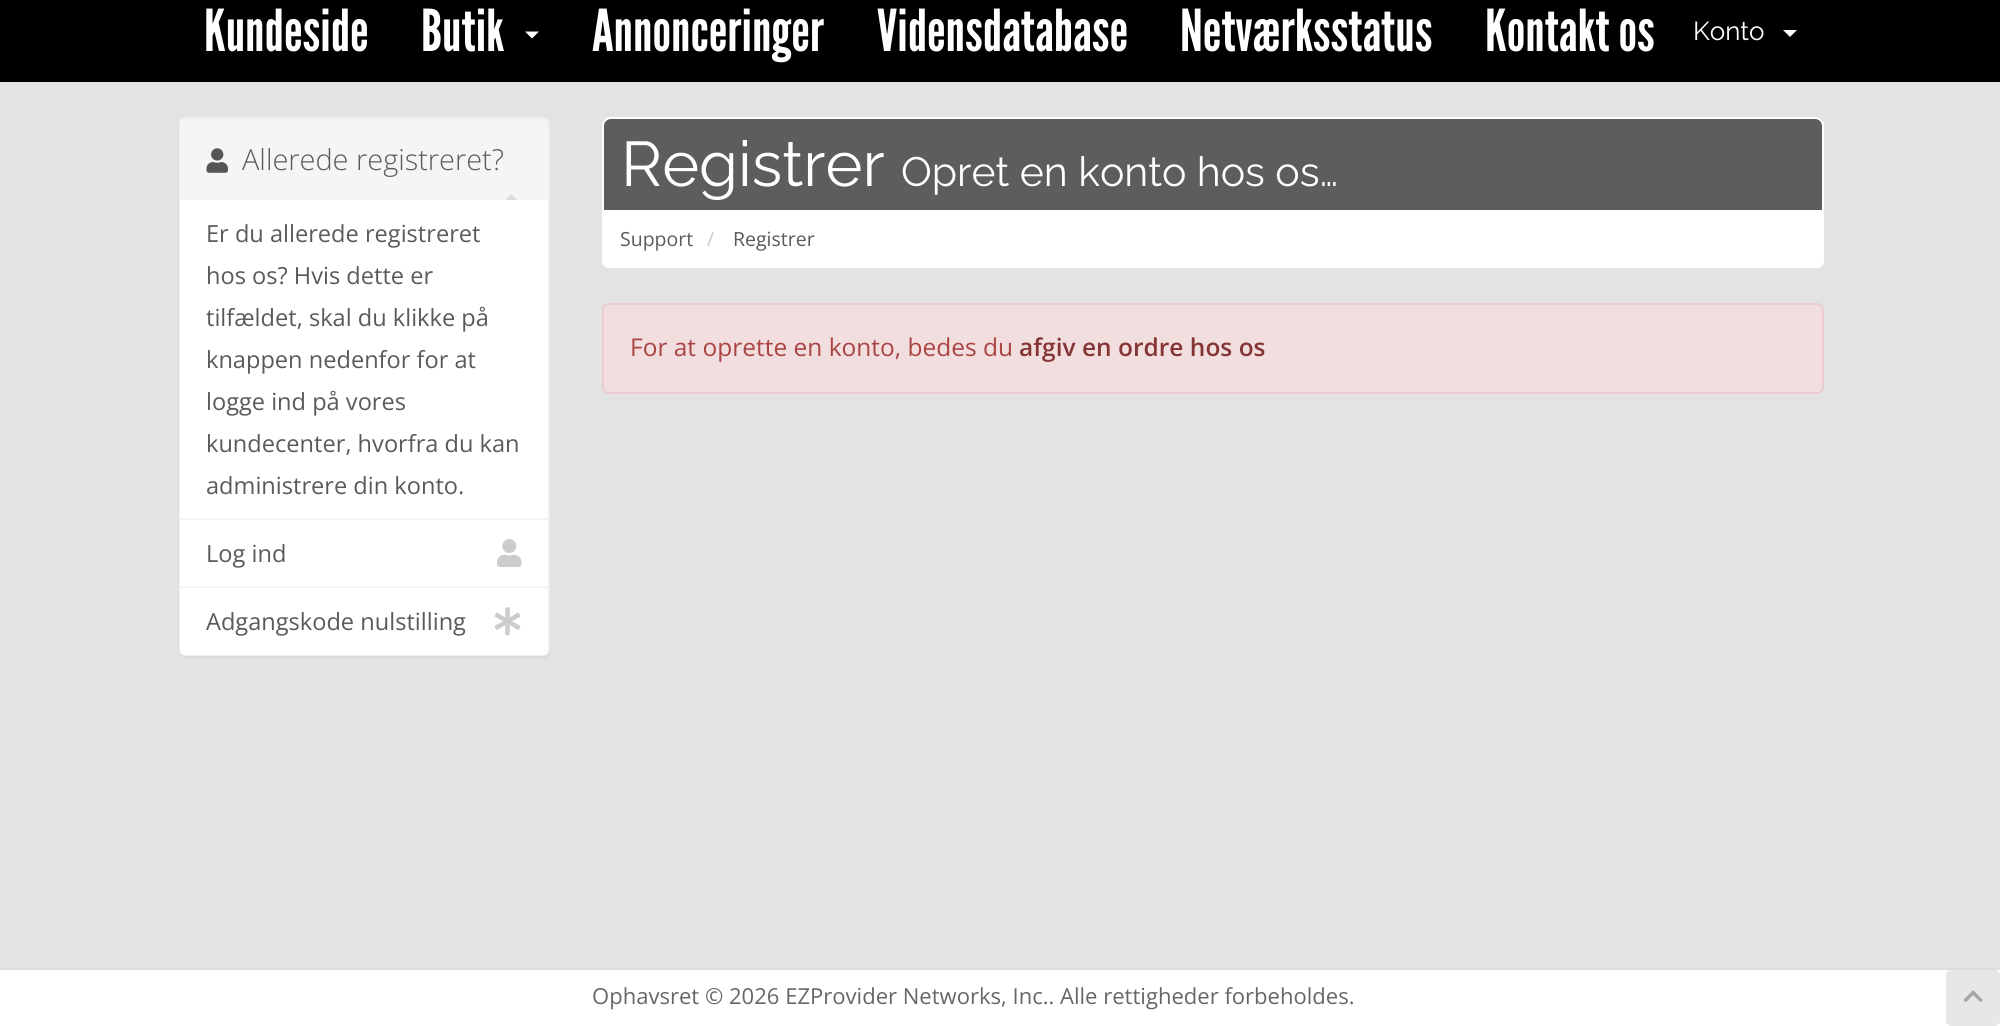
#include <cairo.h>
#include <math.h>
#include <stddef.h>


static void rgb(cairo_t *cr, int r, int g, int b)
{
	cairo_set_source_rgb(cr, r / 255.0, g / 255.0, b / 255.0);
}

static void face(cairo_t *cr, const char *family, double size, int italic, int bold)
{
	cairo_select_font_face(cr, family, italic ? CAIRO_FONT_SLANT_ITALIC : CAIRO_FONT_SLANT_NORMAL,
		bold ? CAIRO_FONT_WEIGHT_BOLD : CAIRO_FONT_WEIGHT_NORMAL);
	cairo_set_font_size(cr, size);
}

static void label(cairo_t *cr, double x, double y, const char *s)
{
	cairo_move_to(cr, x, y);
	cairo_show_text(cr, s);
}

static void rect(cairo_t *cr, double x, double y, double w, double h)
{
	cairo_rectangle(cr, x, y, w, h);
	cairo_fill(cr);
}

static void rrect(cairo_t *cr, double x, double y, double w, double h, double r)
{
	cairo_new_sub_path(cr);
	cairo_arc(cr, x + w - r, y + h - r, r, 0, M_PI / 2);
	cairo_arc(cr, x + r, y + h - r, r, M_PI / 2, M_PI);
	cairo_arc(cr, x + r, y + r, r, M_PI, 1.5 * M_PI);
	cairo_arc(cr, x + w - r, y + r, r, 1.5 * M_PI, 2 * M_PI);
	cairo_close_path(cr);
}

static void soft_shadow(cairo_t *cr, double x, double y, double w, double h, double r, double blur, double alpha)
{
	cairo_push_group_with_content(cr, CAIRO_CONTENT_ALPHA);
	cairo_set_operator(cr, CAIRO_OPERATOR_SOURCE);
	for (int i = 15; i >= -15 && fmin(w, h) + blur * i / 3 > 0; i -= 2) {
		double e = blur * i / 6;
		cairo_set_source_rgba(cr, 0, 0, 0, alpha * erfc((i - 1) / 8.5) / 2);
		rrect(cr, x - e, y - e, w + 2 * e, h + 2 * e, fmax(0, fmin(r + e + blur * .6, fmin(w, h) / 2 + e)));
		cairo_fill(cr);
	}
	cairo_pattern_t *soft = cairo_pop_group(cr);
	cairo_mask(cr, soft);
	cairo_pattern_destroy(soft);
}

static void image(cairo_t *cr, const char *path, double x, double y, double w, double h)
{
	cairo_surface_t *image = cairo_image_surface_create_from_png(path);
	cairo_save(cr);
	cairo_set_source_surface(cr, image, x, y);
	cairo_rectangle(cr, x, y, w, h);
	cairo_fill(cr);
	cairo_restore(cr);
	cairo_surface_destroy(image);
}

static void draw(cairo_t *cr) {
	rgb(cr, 227, 227, 227);
	cairo_paint(cr);
	rgb(cr, 0, 0, 0);
	rect(cr, 0, 0, 2000, 82);
	face(cr, "League Gothic", 57.75, 0, 0);
	rgb(cr, 255, 255, 255);
	label(cr, 204, 51, "Kundeside");
	label(cr, 421, 51, "Butik");
	cairo_new_path(cr);
	cairo_move_to(cr, 525, 31.5);
	cairo_line_to(cr, 539, 31.5);
	cairo_line_to(cr, 532, 38.5);
	cairo_close_path(cr);
	cairo_fill(cr);
	label(cr, 592, 51, "Annonceringer");
	label(cr, 877, 51, "Vidensdatabase");
	label(cr, 1180, 51, "Netværksstatus");
	label(cr, 1485, 51, "Kontakt os");
	face(cr, "Raleway", 26, 0, 0);
	label(cr, 1693, 40, "Konto");
	cairo_new_path(cr);
	cairo_move_to(cr, 1783, 30);
	cairo_line_to(cr, 1797, 30);
	cairo_line_to(cr, 1790, 37);
	cairo_close_path(cr);
	cairo_fill(cr);
	rgb(cr, 0, 0, 0);
	soft_shadow(cr, 179, 119, 371, 539, 7, 1, 0.05);
	rrect(cr, 180, 118, 369, 537, 6);
	rgb(cr, 238, 238, 238);
	cairo_stroke(cr);
	rgb(cr, 245, 245, 245);
	cairo_new_path(cr);
	cairo_move_to(cr, 185, 119);
	cairo_line_to(cr, 543, 119);
	cairo_curve_to(cr, 546, 119, 548, 121, 548, 124);
	cairo_line_to(cr, 548, 200);
	cairo_line_to(cr, 180, 200);
	cairo_line_to(cr, 180, 124);
	cairo_curve_to(cr, 180, 121, 182, 119, 185, 119);
	cairo_close_path(cr);
	cairo_fill(cr);
	image(cr, "image0.png", 206, 148, 22, 25);
	face(cr, "Open Sans Light", 28.9, 0, 0);
	rgb(cr, 90, 90, 90);
	label(cr, 242, 170, "Allerede registreret?");
	image(cr, "image1.png", 505, 194, 13, 6);
	rgb(cr, 255, 255, 255);
	rect(cr, 180, 200, 368, 318);
	rgb(cr, 245, 245, 245);
	rect(cr, 180, 518, 368, 2);
	face(cr, "Open Sans", 23.6, 0, 0);
	rgb(cr, 90, 90, 90);
	label(cr, 206, 242, "Er du allerede registreret");
	label(cr, 206, 284, "hos os? Hvis dette er");
	label(cr, 206, 326, "tilfældet, skal du klikke på");
	label(cr, 206, 368, "knappen nedenfor for at");
	label(cr, 206, 410, "logge ind på vores");
	label(cr, 206, 452, "kundecenter, hvorfra du kan");
	label(cr, 206, 494, "administrere din konto.");
	rgb(cr, 255, 255, 255);
	rect(cr, 180, 520, 368, 66);
	rgb(cr, 90, 90, 90);
	label(cr, 206, 562, "Log ind");
	image(cr, "image2.png", 497, 539, 25, 28);
	rgb(cr, 255, 255, 255);
	cairo_new_path(cr);
	cairo_move_to(cr, 180, 586);
	cairo_line_to(cr, 548, 586);
	cairo_line_to(cr, 548, 650);
	cairo_curve_to(cr, 548, 653, 546, 655, 543, 655);
	cairo_line_to(cr, 185, 655);
	cairo_curve_to(cr, 182, 655, 180, 653, 180, 650);
	cairo_close_path(cr);
	cairo_fill(cr);
	rgb(cr, 245, 245, 245);
	rect(cr, 180, 586, 368, 2);
	rgb(cr, 90, 90, 90);
	label(cr, 206, 630, "Adgangskode nulstilling");
	image(cr, "image3.png", 494, 607, 27, 29);
	rgb(cr, 93, 93, 93);
	cairo_new_path(cr);
	cairo_move_to(cr, 611, 118);
	cairo_line_to(cr, 1815, 118);
	cairo_curve_to(cr, 1819.5, 118, 1823, 121.5, 1823, 126);
	cairo_line_to(cr, 1823, 211);
	cairo_line_to(cr, 603, 211);
	cairo_line_to(cr, 603, 126);
	cairo_curve_to(cr, 603, 121.5, 606.5, 118, 611, 118);
	cairo_close_path(cr);
	cairo_fill_preserve(cr);
	rgb(cr, 255, 255, 255);
	cairo_stroke(cr);
	face(cr, "Raleway", 63, 0, 0);
	label(cr, 621, 186, "Registrer");
	face(cr, "Raleway", 41, 0, 0);
	label(cr, 901, 186, "Opret en konto hos os…");
	cairo_new_path(cr);
	cairo_move_to(cr, 602, 212);
	cairo_line_to(cr, 1824, 212);
	cairo_line_to(cr, 1824, 261);
	cairo_curve_to(cr, 1824, 265, 1821, 268, 1817, 268);
	cairo_line_to(cr, 609, 268);
	cairo_curve_to(cr, 605, 268, 602, 265, 602, 261);
	cairo_close_path(cr);
	cairo_fill(cr);
	face(cr, "Open Sans", 19.5, 0, 0);
	rgb(cr, 90, 90, 90);
	label(cr, 620, 246, "Support");
	rgb(cr, 204, 204, 204);
	label(cr, 707, 246, "/");
	rgb(cr, 90, 90, 90);
	label(cr, 733, 246, "Registrer");
	rgb(cr, 242, 222, 222);
	rrect(cr, 603, 304, 1220, 89, 6);
	cairo_fill_preserve(cr);
	rgb(cr, 235, 204, 209);
	cairo_stroke(cr);
	face(cr, "Open Sans", 24.5, 0, 0);
	rgb(cr, 169, 68, 66);
	label(cr, 630, 356, "For at oprette en konto, bedes du");
	face(cr, "Open Sans SemiBold", 24.5, 0, 0);
	rgb(cr, 132, 53, 52);
	label(cr, 1019, 356, "afgiv en ordre hos os");
	rgb(cr, 221, 221, 221);
	rect(cr, 0, 968, 2000, 2);
	rgb(cr, 255, 255, 255);
	rect(cr, 0, 970, 2000, 56);
	face(cr, "Open Sans", 22.05, 0, 0);
	rgb(cr, 102, 102, 102);
	label(cr, 592, 1004, "Ophavsret © 2026 EZProvider Networks, Inc.. Alle rettigheder forbeholdes.");
	rgb(cr, 231, 231, 231);
	rrect(cr, 1946, 970, 54, 56, 5);
	cairo_fill(cr);
	image(cr, "image4.png", 1963, 990, 20, 12);
}

int main(void) {
	cairo_surface_t *surface = cairo_image_surface_create(CAIRO_FORMAT_RGB24, 2000, 1026);
	cairo_t *cr = cairo_create(surface);
	cairo_font_options_t *options = cairo_font_options_create();
	cairo_font_options_set_hint_metrics(options, CAIRO_HINT_METRICS_OFF);
	cairo_font_options_set_hint_style(options, CAIRO_HINT_STYLE_NONE);
	cairo_set_font_options(cr, options);
	cairo_set_miter_limit(cr, 4);
	draw(cr);
	cairo_surface_write_to_png(surface, "render.png");
	cairo_font_options_destroy(options);
	cairo_destroy(cr);
	cairo_surface_destroy(surface);
	return 0;
}
